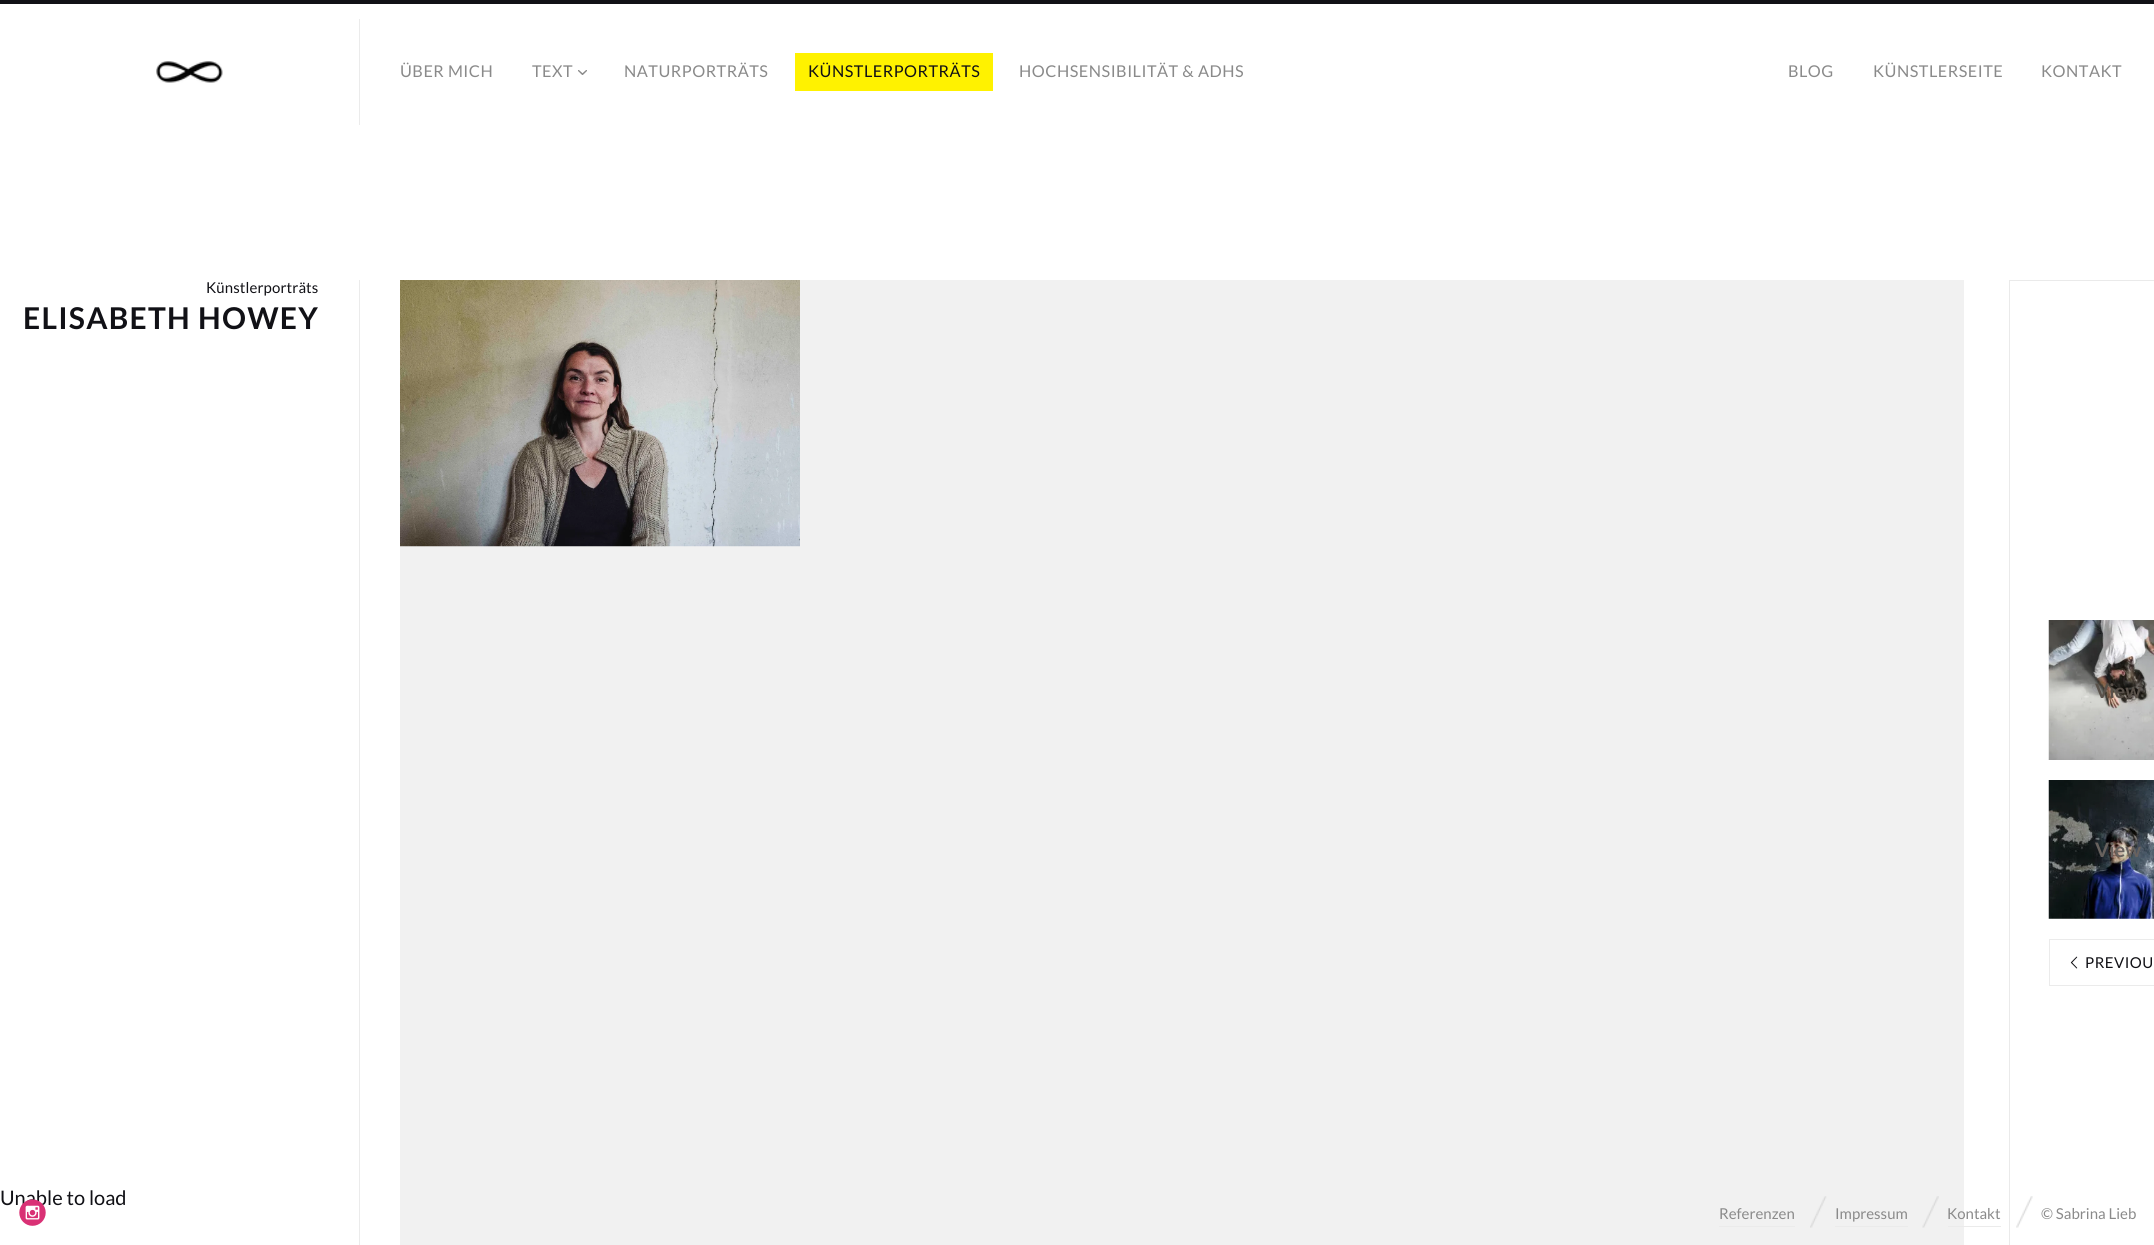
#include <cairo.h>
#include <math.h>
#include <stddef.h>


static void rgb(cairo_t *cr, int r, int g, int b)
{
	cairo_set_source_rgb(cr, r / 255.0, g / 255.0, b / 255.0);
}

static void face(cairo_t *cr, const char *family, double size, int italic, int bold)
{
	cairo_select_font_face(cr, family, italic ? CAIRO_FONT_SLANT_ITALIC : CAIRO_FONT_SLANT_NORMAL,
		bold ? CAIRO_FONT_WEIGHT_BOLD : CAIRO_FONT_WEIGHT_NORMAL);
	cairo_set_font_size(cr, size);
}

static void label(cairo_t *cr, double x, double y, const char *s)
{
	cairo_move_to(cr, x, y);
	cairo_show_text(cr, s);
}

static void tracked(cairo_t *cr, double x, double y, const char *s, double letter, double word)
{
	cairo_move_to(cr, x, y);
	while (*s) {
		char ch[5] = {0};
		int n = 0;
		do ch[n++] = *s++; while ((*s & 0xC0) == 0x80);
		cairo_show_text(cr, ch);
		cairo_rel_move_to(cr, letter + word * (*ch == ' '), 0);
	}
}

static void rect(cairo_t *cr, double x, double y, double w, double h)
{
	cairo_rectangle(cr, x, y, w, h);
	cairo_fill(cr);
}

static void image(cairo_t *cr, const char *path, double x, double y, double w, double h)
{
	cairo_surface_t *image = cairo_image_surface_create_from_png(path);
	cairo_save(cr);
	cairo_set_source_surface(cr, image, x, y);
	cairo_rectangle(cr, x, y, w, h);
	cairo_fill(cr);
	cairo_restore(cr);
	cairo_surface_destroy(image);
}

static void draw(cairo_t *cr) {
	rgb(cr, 255, 255, 255);
	cairo_paint(cr);
	rgb(cr, 17, 17, 22);
	rect(cr, 0, 0, 2154, 4);
	rgb(cr, 235, 235, 235);
	rect(cr, 359, 19, 1, 106);
	image(cr, "image0.png", 156, 61, 67, 22);
	face(cr, "Lato", 16.25, 0, 0);
	rgb(cr, 138, 138, 138);
	tracked(cr, 400, 77, "ÜBER MICH", 0.5, 0);
	tracked(cr, 532, 77, "TEXT", 0.5, 0);
	image(cr, "image1.png", 578, 70, 9, 5);
	tracked(cr, 624, 77, "NATURPORTRÄTS", 0.5, 0);
	rgb(cr, 255, 242, 0);
	rect(cr, 795, 53, 198, 38);
	rgb(cr, 17, 17, 22);
	tracked(cr, 808, 77, "KÜNSTLERPORTRÄTS", 0.5, 0);
	rgb(cr, 138, 138, 138);
	tracked(cr, 1019, 77, "HOCHSENSIBILITÄT & ADHS", 0.5, 0);
	tracked(cr, 1788, 77, "BLOG", 0.5, 0);
	tracked(cr, 1873, 77, "KÜNSTLERSEITE", 0.5, 0);
	tracked(cr, 2041, 77, "KONTAKT", 0.5, 0);
	rgb(cr, 235, 235, 235);
	rect(cr, 359, 280, 1, 965);
	face(cr, "Lato", 15, 0, 0);
	rgb(cr, 17, 17, 22);
	tracked(cr, 206, 293, "Künstlerporträts", 0.1, 0);
	face(cr, "Lato", 30, 0, 1);
	tracked(cr, 23, 329, "ELISABETH HOWEY", 1.25, 0);
	rgb(cr, 241, 241, 241);
	rect(cr, 400, 280, 1564, 965);
	image(cr, "image2.png", 400, 280, 400, 267);
	cairo_rectangle(cr, 2009.5, 280.5, 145, 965);
	rgb(cr, 234, 234, 234);
	cairo_set_line_width(cr, 1);
	cairo_stroke(cr);
	image(cr, "image3.png", 2048, 620, 106, 140);
	face(cr, "Lato", 20, 0, 1);
	rgb(cr, 89, 81, 74);
	label(cr, 2095, 698, "View");
	image(cr, "image4.png", 2048, 780, 106, 139);
	rgb(cr, 104, 98, 94);
	label(cr, 2095, 857, "View");
	cairo_rectangle(cr, 2049.5, 939.5, 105, 46);
	rgb(cr, 235, 235, 235);
	cairo_stroke(cr);
	image(cr, "image5.png", 2070, 956, 8, 13);
	face(cr, "Lato", 15, 0, 0);
	rgb(cr, 17, 17, 22);
	tracked(cr, 2085, 968, "PREVIOU", 0.5, 0);
	face(cr, "Lato", 20, 0, 0);
	label(cr, 0, 1205, "Unable to load");
	image(cr, "image6.png", 19, 1199, 27, 27);
	rgb(cr, 235, 235, 235);
	rect(cr, 1719, 1226, 76, 1);
	face(cr, "Lato", 15, 0, 0);
	rgb(cr, 138, 138, 138);
	label(cr, 1719, 1219, "Referenzen");
	image(cr, "image7.png", 1810, 1196, 17, 32);
	rgb(cr, 235, 235, 235);
	rect(cr, 1835, 1226, 73, 1);
	rgb(cr, 138, 138, 138);
	label(cr, 1835, 1219, "Impressum");
	image(cr, "image8.png", 1922, 1196, 17, 32);
	rgb(cr, 235, 235, 235);
	rect(cr, 1948, 1226, 53, 1);
	rgb(cr, 138, 138, 138);
	label(cr, 1947, 1219, "Kontakt");
	image(cr, "image9.png", 2016, 1196, 17, 32);
	label(cr, 2041, 1219, "© Sabrina Lieb");
}

int main(void) {
	cairo_surface_t *surface = cairo_image_surface_create(CAIRO_FORMAT_RGB24, 2154, 1245);
	cairo_t *cr = cairo_create(surface);
	cairo_font_options_t *options = cairo_font_options_create();
	cairo_font_options_set_hint_metrics(options, CAIRO_HINT_METRICS_OFF);
	cairo_font_options_set_hint_style(options, CAIRO_HINT_STYLE_NONE);
	cairo_set_font_options(cr, options);
	cairo_set_miter_limit(cr, 4);
	draw(cr);
	cairo_surface_write_to_png(surface, "render.png");
	cairo_font_options_destroy(options);
	cairo_destroy(cr);
	cairo_surface_destroy(surface);
	return 0;
}
